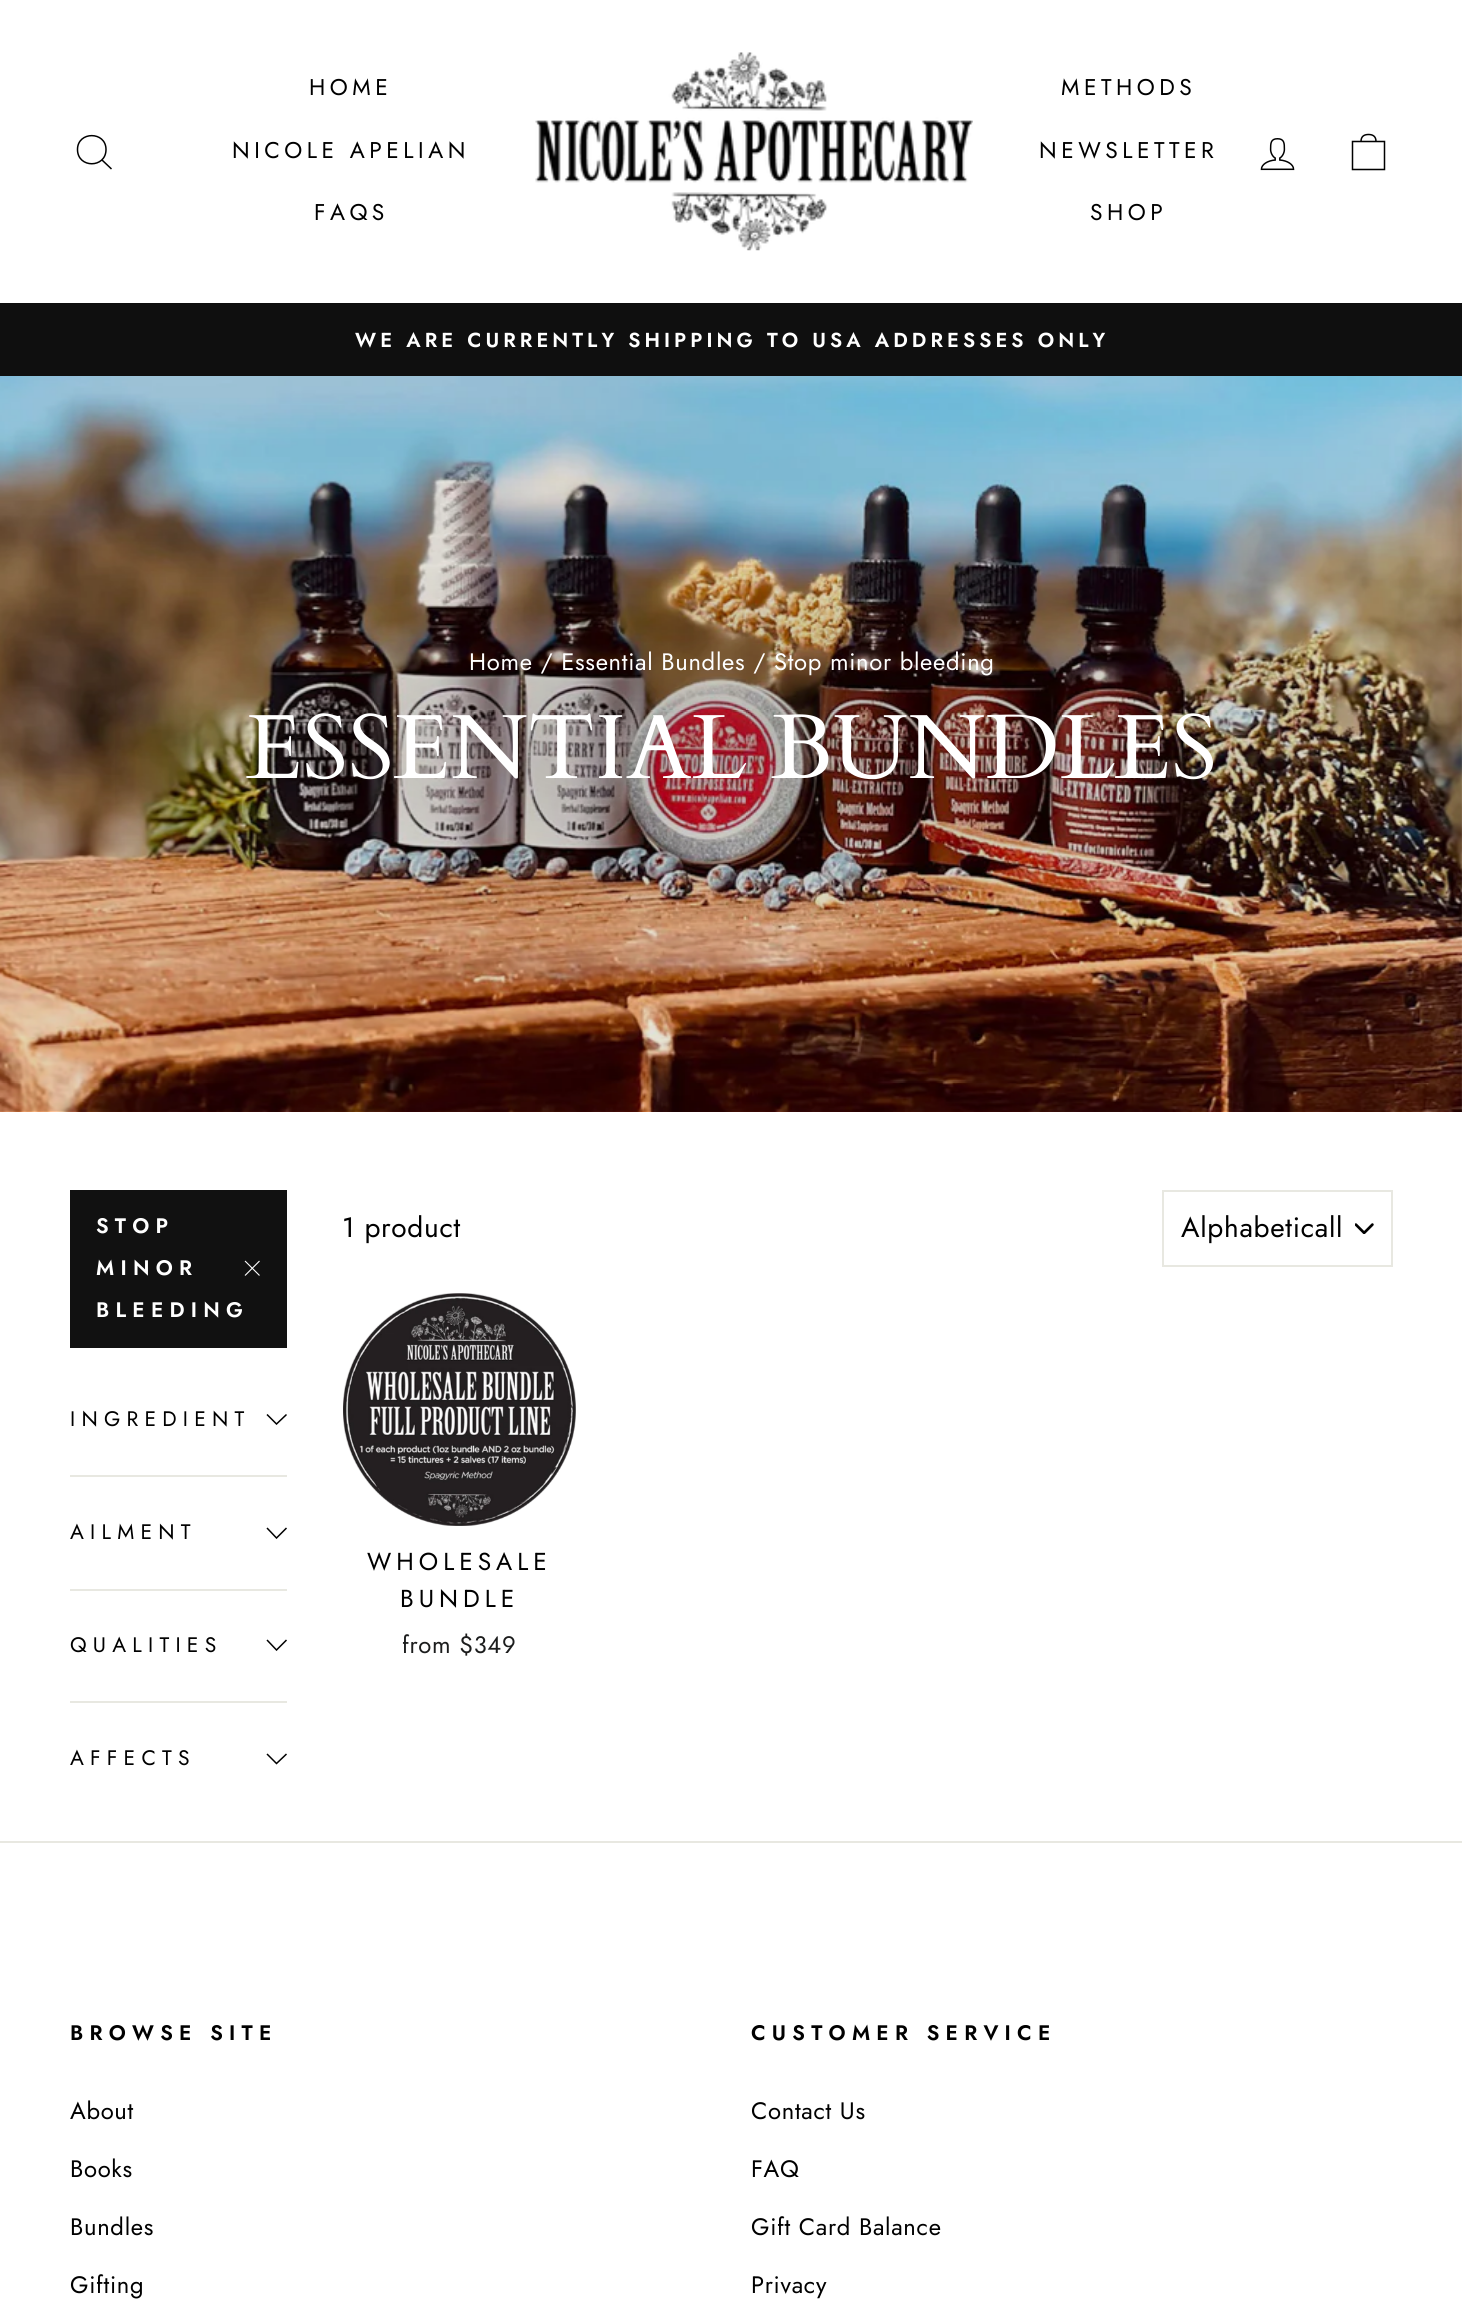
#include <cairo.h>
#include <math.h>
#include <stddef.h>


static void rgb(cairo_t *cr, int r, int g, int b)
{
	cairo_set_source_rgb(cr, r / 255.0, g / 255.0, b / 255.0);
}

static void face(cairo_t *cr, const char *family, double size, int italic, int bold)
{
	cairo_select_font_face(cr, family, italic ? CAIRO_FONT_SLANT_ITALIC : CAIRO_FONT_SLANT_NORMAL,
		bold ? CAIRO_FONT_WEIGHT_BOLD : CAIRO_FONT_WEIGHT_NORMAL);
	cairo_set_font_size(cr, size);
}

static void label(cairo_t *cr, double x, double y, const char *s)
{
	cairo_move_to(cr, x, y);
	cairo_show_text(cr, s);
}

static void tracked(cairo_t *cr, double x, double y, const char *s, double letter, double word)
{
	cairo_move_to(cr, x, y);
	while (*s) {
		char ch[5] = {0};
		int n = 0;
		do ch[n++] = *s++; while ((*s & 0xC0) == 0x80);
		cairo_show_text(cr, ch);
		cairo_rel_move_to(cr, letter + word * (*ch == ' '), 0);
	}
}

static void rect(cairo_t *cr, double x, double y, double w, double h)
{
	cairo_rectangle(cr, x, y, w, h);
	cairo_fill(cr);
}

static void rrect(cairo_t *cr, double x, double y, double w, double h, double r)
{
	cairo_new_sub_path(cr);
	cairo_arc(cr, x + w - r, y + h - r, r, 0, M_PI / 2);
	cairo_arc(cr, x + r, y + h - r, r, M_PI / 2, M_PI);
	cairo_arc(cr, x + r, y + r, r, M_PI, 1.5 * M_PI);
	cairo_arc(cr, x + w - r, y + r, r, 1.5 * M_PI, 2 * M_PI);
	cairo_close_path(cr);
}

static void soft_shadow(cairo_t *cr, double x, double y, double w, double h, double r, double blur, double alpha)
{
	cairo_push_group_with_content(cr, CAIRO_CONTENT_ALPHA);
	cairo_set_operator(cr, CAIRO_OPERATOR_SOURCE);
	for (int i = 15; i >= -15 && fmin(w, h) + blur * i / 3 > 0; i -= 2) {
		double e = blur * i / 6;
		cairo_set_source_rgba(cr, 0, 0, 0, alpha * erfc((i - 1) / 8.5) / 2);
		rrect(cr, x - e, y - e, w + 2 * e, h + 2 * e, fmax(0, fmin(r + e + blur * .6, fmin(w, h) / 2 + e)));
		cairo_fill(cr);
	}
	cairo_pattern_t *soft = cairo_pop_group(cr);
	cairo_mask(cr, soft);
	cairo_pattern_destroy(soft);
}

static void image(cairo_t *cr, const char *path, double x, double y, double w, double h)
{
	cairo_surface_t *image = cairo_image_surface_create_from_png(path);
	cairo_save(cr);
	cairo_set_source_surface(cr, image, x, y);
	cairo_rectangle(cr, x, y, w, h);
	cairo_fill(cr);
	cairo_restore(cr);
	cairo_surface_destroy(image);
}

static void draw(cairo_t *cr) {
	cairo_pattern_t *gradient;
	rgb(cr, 255, 255, 255);
	cairo_paint(cr);
	rgb(cr, 15, 15, 15);
	rect(cr, 0, 303, 1462, 73);
	rgb(cr, 0, 0, 0);
	soft_shadow(cr, 0, 0, 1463, 303, 0, 1, 0.2);
	rgb(cr, 255, 255, 255);
	rect(cr, 0, 0, 1462, 303);
	cairo_new_path(cr);
	cairo_move_to(cr, 106, 149.5);
	cairo_curve_to(cr, 106, 168.5, 77.5, 168.5, 77.5, 149.5);
	cairo_curve_to(cr, 77.5, 131, 106, 131, 106, 149.5);
	cairo_close_path(cr);
	cairo_move_to(cr, 111.5, 169);
	cairo_line_to(cr, 102, 160);
	rgb(cr, 0, 0, 0);
	cairo_set_line_width(cr, 1.5);
	cairo_stroke(cr);
	face(cr, "Jost", 22.75, 0, 0);
	tracked(cr, 309, 95, "HOME", 4.5, 0);
	tracked(cr, 232, 158, "NICOLE APELIAN", 4.5, 0);
	tracked(cr, 314, 220, "FAQS", 4.5, 0);
	image(cr, "image0.png", 535, 52, 438, 199);
	tracked(cr, 1061, 95, "METHODS", 4.5, 0);
	tracked(cr, 1039, 158, "NEWSLETTER", 4.5, 0);
	tracked(cr, 1090, 220, "SHOP", 4.5, 0);
	image(cr, "image1.png", 1260, 138, 35, 33);
	cairo_new_path(cr);
	cairo_move_to(cr, 1352.5, 141.5);
	cairo_line_to(cr, 1384.5, 141.5);
	cairo_line_to(cr, 1384.5, 169.5);
	cairo_line_to(cr, 1352.5, 169.5);
	cairo_close_path(cr);
	cairo_move_to(cr, 1361, 141.5);
	cairo_curve_to(cr, 1361, 136, 1364.5, 134.5, 1368.5, 134.5);
	cairo_curve_to(cr, 1372.5, 134.5, 1376, 136, 1376, 141.5);
	cairo_stroke(cr);
	face(cr, "Jost SemiBold", 20.25, 0, 0);
	rgb(cr, 255, 255, 255);
	tracked(cr, 355, 347, "WE ARE CURRENTLY SHIPPING TO USA ADDRESSES ONLY", 4.05, 0);
	image(cr, "image2.png", 0, 376, 1462, 736);
	gradient = cairo_pattern_create_radial(0, 0, 0, 0, 0, 1);
	cairo_pattern_set_matrix(gradient, &(cairo_matrix_t){1.0 / 1181, 0, 0, 1.0 / 327, -1.0 * 732 / 1181, -1.0 * 744 / 327});
	cairo_pattern_add_color_stop_rgba(gradient, 0, 0, 0, 0, 0.2);
	cairo_pattern_add_color_stop_rgba(gradient, 0.6, 0, 0, 0, 0);
	cairo_set_source(cr, gradient);
	cairo_pattern_destroy(gradient);
	rect(cr, 115, 569, 1255, 350);
	face(cr, "Jost", 23.8, 0, 0);
	rgb(cr, 255, 255, 255);
	tracked(cr, 469, 670, "Home / Essential Bundles / Stop minor bleeding", 0.7, 0);
	face(cr, "Cardo", 91.3, 0, 0);
	label(cr, 246, 778, "ESSENTIAL BUNDLES");
	rgb(cr, 17, 17, 17);
	rect(cr, 70, 1190, 217, 158);
	face(cr, "Jost SemiBold", 21, 0, 0);
	rgb(cr, 255, 255, 255);
	tracked(cr, 96, 1233, "STOP", 6.25, 0);
	tracked(cr, 96, 1275, "MINOR", 6.25, 0);
	tracked(cr, 96, 1317, "BLEEDING", 6.25, 0);
	cairo_new_path(cr);
	cairo_move_to(cr, 245, 1261);
	cairo_line_to(cr, 259.5, 1275.5);
	cairo_move_to(cr, 259.5, 1261);
	cairo_line_to(cr, 245, 1275.5);
	cairo_set_line_width(cr, 1.1);
	cairo_stroke(cr);
	face(cr, "Jost", 21, 0, 0);
	rgb(cr, 0, 0, 0);
	tracked(cr, 70, 1426, "INGREDIENT", 6.25, 0);
	cairo_new_path(cr);
	cairo_move_to(cr, 267, 1414.5);
	cairo_line_to(cr, 276.5, 1424);
	cairo_line_to(cr, 286.5, 1414.5);
	cairo_set_line_width(cr, 1.5);
	cairo_stroke(cr);
	rgb(cr, 232, 232, 225);
	rect(cr, 70, 1475, 217, 2);
	rgb(cr, 0, 0, 0);
	tracked(cr, 70, 1539, "AILMENT", 6.25, 0);
	cairo_new_path(cr);
	cairo_move_to(cr, 267, 1528);
	cairo_line_to(cr, 276.5, 1538);
	cairo_line_to(cr, 286.5, 1528);
	cairo_stroke(cr);
	rgb(cr, 232, 232, 225);
	rect(cr, 70, 1589, 217, 2);
	rgb(cr, 0, 0, 0);
	tracked(cr, 70, 1652, "QUALITIES", 6.25, 0);
	cairo_new_path(cr);
	cairo_move_to(cr, 267, 1640);
	cairo_line_to(cr, 276.5, 1650);
	cairo_line_to(cr, 286.5, 1640);
	cairo_stroke(cr);
	rgb(cr, 232, 232, 225);
	rect(cr, 70, 1701, 217, 2);
	rgb(cr, 0, 0, 0);
	tracked(cr, 70, 1765, "AFFECTS", 6.25, 0);
	cairo_new_path(cr);
	cairo_move_to(cr, 267, 1754);
	cairo_line_to(cr, 276.5, 1763.5);
	cairo_line_to(cr, 286.5, 1754);
	cairo_stroke(cr);
	face(cr, "Jost", 28, 0, 0);
	tracked(cr, 342, 1237, "1 product", 0.7, 0);
	image(cr, "image3.png", 1355, 1223, 19, 11);
	cairo_rectangle(cr, 1163, 1191, 229, 75);
	rgb(cr, 232, 232, 225);
	cairo_set_line_width(cr, 2);
	cairo_stroke(cr);
	rgb(cr, 0, 0, 0);
	tracked(cr, 1181, 1237, "Alphabeticall", 0.7, 0);
	image(cr, "image4.png", 343, 1293, 233, 233);
	face(cr, "Jost", 24.5, 0, 0);
	tracked(cr, 367, 1570, "WHOLESALE", 5, 0);
	tracked(cr, 400, 1607, "BUNDLE", 5, 0);
	face(cr, "Jost", 23.8, 0, 0);
	rgb(cr, 28, 29, 29);
	tracked(cr, 402, 1653, "from $349", 0.7, 0);
	rgb(cr, 232, 232, 225);
	rect(cr, 0, 1841, 1462, 2);
	face(cr, "Jost SemiBold", 21, 0, 0);
	rgb(cr, 0, 0, 0);
	tracked(cr, 70, 2040, "BROWSE SITE", 6.25, 0);
	face(cr, "Jost", 23.8, 0, 0);
	tracked(cr, 70, 2119, "About", 0.7, 0);
	tracked(cr, 70, 2177, "Books", 0.7, 0);
	tracked(cr, 70, 2235, "Bundles", 0.7, 0);
	tracked(cr, 70, 2293, "Gifting", 0.7, 0);
	face(cr, "Jost SemiBold", 21, 0, 0);
	tracked(cr, 751, 2040, "CUSTOMER SERVICE", 6.25, 0);
	face(cr, "Jost", 23.8, 0, 0);
	tracked(cr, 751, 2119, "Contact Us", 0.7, 0);
	tracked(cr, 751, 2177, "FAQ", 0.7, 0);
	tracked(cr, 751, 2235, "Gift Card Balance", 0.7, 0);
	tracked(cr, 751, 2293, "Privacy", 0.7, 0);
}

int main(void) {
	cairo_surface_t *surface = cairo_image_surface_create(CAIRO_FORMAT_RGB24, 1462, 2314);
	cairo_t *cr = cairo_create(surface);
	cairo_font_options_t *options = cairo_font_options_create();
	cairo_font_options_set_hint_metrics(options, CAIRO_HINT_METRICS_OFF);
	cairo_font_options_set_hint_style(options, CAIRO_HINT_STYLE_NONE);
	cairo_set_font_options(cr, options);
	cairo_set_miter_limit(cr, 4);
	draw(cr);
	cairo_surface_write_to_png(surface, "render.png");
	cairo_font_options_destroy(options);
	cairo_destroy(cr);
	cairo_surface_destroy(surface);
	return 0;
}
